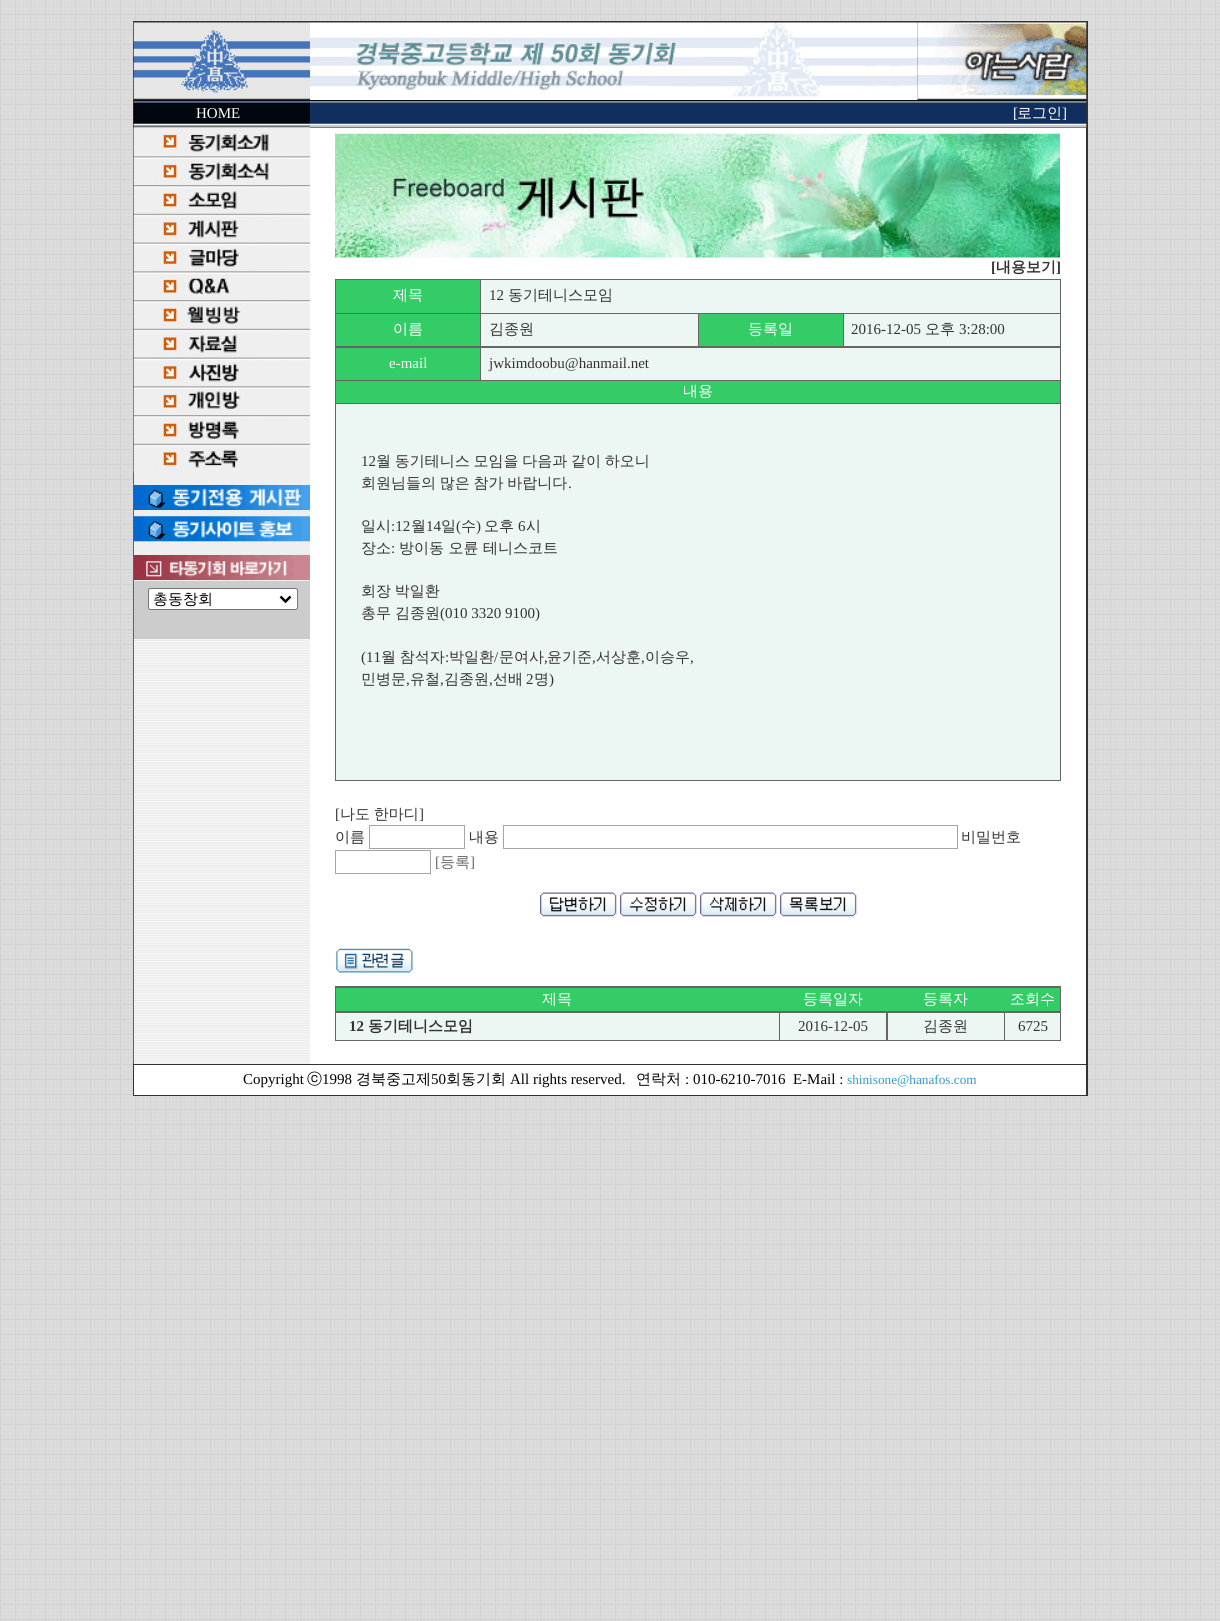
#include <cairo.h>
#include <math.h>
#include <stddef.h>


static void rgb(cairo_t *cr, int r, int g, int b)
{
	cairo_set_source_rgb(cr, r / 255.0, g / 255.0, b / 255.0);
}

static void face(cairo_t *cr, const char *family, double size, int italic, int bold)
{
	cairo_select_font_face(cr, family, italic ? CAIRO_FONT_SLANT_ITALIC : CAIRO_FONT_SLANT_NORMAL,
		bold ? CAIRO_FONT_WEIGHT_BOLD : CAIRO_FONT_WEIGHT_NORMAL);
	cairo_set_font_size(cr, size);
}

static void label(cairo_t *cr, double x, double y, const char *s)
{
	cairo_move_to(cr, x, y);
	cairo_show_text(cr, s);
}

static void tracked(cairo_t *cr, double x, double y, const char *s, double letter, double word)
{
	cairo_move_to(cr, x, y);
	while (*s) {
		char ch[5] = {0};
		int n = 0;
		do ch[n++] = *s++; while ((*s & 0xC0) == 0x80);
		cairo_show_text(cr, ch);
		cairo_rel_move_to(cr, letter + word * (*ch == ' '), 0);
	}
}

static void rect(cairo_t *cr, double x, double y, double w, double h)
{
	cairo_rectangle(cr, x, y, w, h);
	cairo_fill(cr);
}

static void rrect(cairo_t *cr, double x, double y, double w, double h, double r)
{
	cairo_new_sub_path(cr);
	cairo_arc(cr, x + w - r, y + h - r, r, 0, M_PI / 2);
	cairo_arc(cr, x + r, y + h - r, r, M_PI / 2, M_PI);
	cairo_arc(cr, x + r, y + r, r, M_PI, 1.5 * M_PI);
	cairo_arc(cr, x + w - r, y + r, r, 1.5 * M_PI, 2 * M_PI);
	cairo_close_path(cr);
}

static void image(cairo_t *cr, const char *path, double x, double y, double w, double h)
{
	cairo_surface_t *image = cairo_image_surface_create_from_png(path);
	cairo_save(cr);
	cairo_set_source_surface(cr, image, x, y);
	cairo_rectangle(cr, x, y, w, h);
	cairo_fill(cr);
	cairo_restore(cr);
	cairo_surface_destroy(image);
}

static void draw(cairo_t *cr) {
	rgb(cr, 255, 255, 255);
	cairo_paint(cr);
	image(cr, "image0.png", 0, 0, 1220, 1621);
	rgb(cr, 51, 51, 51);
	rect(cr, 133, 21, 955, 1075);
	image(cr, "image1.png", 133, 22, 177, 77);
	image(cr, "image2.png", 310, 22, 608, 78);
	image(cr, "image3.png", 917, 22, 170, 77);
	image(cr, "image4.png", 133, 100, 177, 28);
	face(cr, "Liberation Serif", 15, 0, 0);
	rgb(cr, 255, 255, 255);
	label(cr, 196, 118, "HOME");
	image(cr, "image5.png", 310, 100, 777, 28);
	label(cr, 1013, 118, "[");
	face(cr, "WenQuanYi Zen Hei Medium", 15, 0, 0);
	label(cr, 1017, 118, "로그인");
	face(cr, "Liberation Serif", 15, 0, 0);
	label(cr, 1062, 118, "]");
	rect(cr, 134, 128, 952, 936);
	image(cr, "image6.png", 133, 127, 177, 937);
	image(cr, "image7.png", 133, 127, 177, 30);
	image(cr, "image8.png", 133, 156, 177, 29);
	image(cr, "image9.png", 133, 185, 177, 29);
	image(cr, "image10.png", 133, 213, 177, 30);
	image(cr, "image11.png", 133, 242, 177, 30);
	image(cr, "image12.png", 133, 271, 177, 29);
	image(cr, "image13.png", 133, 300, 177, 29);
	image(cr, "image14.png", 133, 328, 177, 30);
	image(cr, "image15.png", 133, 357, 177, 30);
	image(cr, "image16.png", 133, 386, 177, 29);
	image(cr, "image17.png", 133, 415, 177, 29);
	image(cr, "image18.png", 133, 443, 177, 30);
	rgb(cr, 239, 239, 239);
	rect(cr, 134, 474, 176, 11);
	image(cr, "image19.png", 133, 485, 177, 25);
	rect(cr, 134, 510, 176, 6);
	rect(cr, 134, 541, 176, 11);
	image(cr, "image20.png", 133, 516, 177, 26);
	rect(cr, 134, 554, 176, 27);
	image(cr, "image21.png", 133, 555, 177, 25);
	rgb(cr, 204, 204, 204);
	rect(cr, 134, 581, 176, 58);
	rgb(cr, 255, 255, 255);
	rrect(cr, 148.5, 588.5, 149, 21, 2);
	cairo_fill_preserve(cr);
	rgb(cr, 118, 118, 118);
	cairo_set_line_width(cr, 1);
	cairo_stroke(cr);
	cairo_new_path(cr);
	cairo_move_to(cr, 280.5, 596.5);
	cairo_line_to(cr, 285.5, 601.5);
	cairo_line_to(cr, 290.5, 596.5);
	rgb(cr, 0, 0, 0);
	cairo_set_line_width(cr, 2.5);
	cairo_stroke(cr);
	face(cr, "WenQuanYi Zen Hei Medium", 15, 0, 0);
	label(cr, 153, 604, "총동창회");
	image(cr, "image22.png", 335, 133, 725, 125);
	face(cr, "Liberation Serif", 15, 0, 1);
	rgb(cr, 51, 51, 51);
	label(cr, 991, 272, "[");
	face(cr, "WenQuanYi Zen Hei", 15, 0, 1);
	label(cr, 996, 272, "내용보기");
	face(cr, "Liberation Serif", 15, 0, 1);
	label(cr, 1056, 272, "]");
	rgb(cr, 102, 102, 102);
	rect(cr, 335, 279, 726, 502);
	rgb(cr, 51, 204, 102);
	rect(cr, 336, 280, 144, 33);
	face(cr, "WenQuanYi Zen Hei Medium", 15, 0, 0);
	rgb(cr, 255, 255, 255);
	label(cr, 393, 300, "제목");
	rgb(cr, 236, 246, 243);
	rect(cr, 481, 280, 579, 33);
	face(cr, "Liberation Serif", 15, 0, 0);
	rgb(cr, 51, 51, 51);
	label(cr, 489, 300, "12");
	face(cr, "WenQuanYi Zen Hei Medium", 15, 0, 0);
	label(cr, 508, 300, "동기테니스모임");
	rgb(cr, 51, 204, 102);
	rect(cr, 336, 314, 144, 32);
	rgb(cr, 255, 255, 255);
	label(cr, 393, 334, "이름");
	rgb(cr, 236, 246, 243);
	rect(cr, 481, 314, 217, 32);
	rgb(cr, 51, 51, 51);
	label(cr, 489, 334, "김종원");
	rgb(cr, 51, 204, 102);
	rect(cr, 699, 314, 144, 32);
	rgb(cr, 255, 255, 255);
	label(cr, 748, 334, "등록일");
	rgb(cr, 236, 246, 243);
	rect(cr, 844, 314, 216, 32);
	face(cr, "Liberation Serif", 15, 0, 0);
	rgb(cr, 51, 51, 51);
	label(cr, 851, 334, "2016-12-05");
	face(cr, "WenQuanYi Zen Hei Medium", 15, 0, 0);
	label(cr, 925, 334, "오후");
	face(cr, "Liberation Serif", 15, 0, 0);
	label(cr, 959, 334, "3:28:00");
	rgb(cr, 51, 204, 102);
	rect(cr, 336, 348, 144, 32);
	rgb(cr, 255, 255, 255);
	label(cr, 389, 368, "e-mail");
	rgb(cr, 236, 246, 243);
	rect(cr, 481, 348, 579, 32);
	rgb(cr, 51, 51, 51);
	label(cr, 489, 368, "jwkimdoobu@hanmail.net");
	rgb(cr, 51, 204, 102);
	rect(cr, 336, 381, 724, 22);
	face(cr, "WenQuanYi Zen Hei Medium", 15, 0, 0);
	rgb(cr, 255, 255, 255);
	label(cr, 683, 396, "내용");
	rgb(cr, 236, 246, 243);
	rect(cr, 336, 404, 724, 376);
	face(cr, "Liberation Serif", 15, 0, 0);
	rgb(cr, 51, 51, 51);
	label(cr, 361, 466, "12");
	face(cr, "WenQuanYi Zen Hei Medium", 15, 0, 0);
	tracked(cr, 376, 466, "월 동기테니스 모임을 다음과 같이 하오니", 0, -0.75);
	tracked(cr, 361, 488, "회원님들의 많은 참가 바랍니다", 0, -0.75);
	face(cr, "Liberation Serif", 15, 0, 0);
	label(cr, 568, 488, ".");
	face(cr, "WenQuanYi Zen Hei Medium", 15, 0, 0);
	label(cr, 361, 531, "일시");
	face(cr, "Liberation Serif", 15, 0, 0);
	label(cr, 391, 531, ":12");
	face(cr, "WenQuanYi Zen Hei Medium", 15, 0, 0);
	label(cr, 411, 531, "월");
	face(cr, "Liberation Serif", 15, 0, 0);
	label(cr, 426, 531, "14");
	face(cr, "WenQuanYi Zen Hei Medium", 15, 0, 0);
	label(cr, 441, 531, "일");
	face(cr, "Liberation Serif", 15, 0, 0);
	label(cr, 456, 531, "(");
	face(cr, "WenQuanYi Zen Hei Medium", 15, 0, 0);
	label(cr, 461, 531, "수");
	face(cr, "Liberation Serif", 15, 0, 0);
	label(cr, 476, 531, ")");
	face(cr, "WenQuanYi Zen Hei Medium", 15, 0, 0);
	label(cr, 484, 531, "오후");
	face(cr, "Liberation Serif", 15, 0, 0);
	label(cr, 518, 531, "6");
	face(cr, "WenQuanYi Zen Hei Medium", 15, 0, 0);
	label(cr, 526, 531, "시");
	label(cr, 361, 553, "장소");
	face(cr, "Liberation Serif", 15, 0, 0);
	label(cr, 391, 553, ":");
	face(cr, "WenQuanYi Zen Hei Medium", 15, 0, 0);
	label(cr, 399, 553, "방이동 오륜 테니스코트");
	tracked(cr, 361, 596, "회장 박일환", 0, -0.75);
	label(cr, 361, 618, "총무");
	label(cr, 395, 618, "김종원");
	face(cr, "Liberation Serif", 15, 0, 0);
	label(cr, 440, 618, "(010 3320 9100)");
	label(cr, 361, 662, "(11");
	face(cr, "WenQuanYi Zen Hei Medium", 15, 0, 0);
	tracked(cr, 381, 662, "월 참석자", 0, -0.75);
	face(cr, "Liberation Serif", 15, 0, 0);
	label(cr, 445, 662, ":");
	face(cr, "WenQuanYi Zen Hei Medium", 15, 0, 0);
	label(cr, 449, 662, "박일환");
	face(cr, "Liberation Serif", 15, 0, 0);
	label(cr, 494, 662, "/");
	face(cr, "WenQuanYi Zen Hei Medium", 15, 0, 0);
	label(cr, 499, 662, "문여사");
	face(cr, "Liberation Serif", 15, 0, 0);
	label(cr, 544, 662, ",");
	face(cr, "WenQuanYi Zen Hei Medium", 15, 0, 0);
	label(cr, 547, 662, "윤기준");
	face(cr, "Liberation Serif", 15, 0, 0);
	label(cr, 592, 662, ",");
	face(cr, "WenQuanYi Zen Hei Medium", 15, 0, 0);
	label(cr, 596, 662, "서상훈");
	face(cr, "Liberation Serif", 15, 0, 0);
	label(cr, 641, 662, ",");
	face(cr, "WenQuanYi Zen Hei Medium", 15, 0, 0);
	label(cr, 645, 662, "이승우");
	face(cr, "Liberation Serif", 15, 0, 0);
	label(cr, 690, 662, ",");
	face(cr, "WenQuanYi Zen Hei Medium", 15, 0, 0);
	label(cr, 361, 684, "민병문");
	label(cr, 410, 684, "유철");
	label(cr, 444, 684, "김종원");
	label(cr, 493, 684, "선배");
	face(cr, "Liberation Serif", 15, 0, 0);
	label(cr, 526, 684, "2");
	face(cr, "WenQuanYi Zen Hei Medium", 15, 0, 0);
	label(cr, 534, 684, "명");
	face(cr, "Liberation Serif", 15, 0, 0);
	label(cr, 549, 684, ")");
	label(cr, 406, 684, ",");
	label(cr, 440, 684, ",");
	label(cr, 489, 684, ",");
	label(cr, 335, 819, "[");
	face(cr, "WenQuanYi Zen Hei Medium", 15, 0, 0);
	tracked(cr, 340, 819, "나도 한마디", 0, -0.75);
	face(cr, "Liberation Serif", 15, 0, 0);
	label(cr, 419, 819, "]");
	face(cr, "WenQuanYi Zen Hei Medium", 15, 0, 0);
	label(cr, 335, 842, "이름");
	cairo_rectangle(cr, 369.5, 825.5, 95, 23);
	rgb(cr, 165, 165, 165);
	cairo_set_line_width(cr, 1);
	cairo_stroke(cr);
	rgb(cr, 51, 51, 51);
	label(cr, 469, 842, "내용");
	cairo_rectangle(cr, 503.5, 825.5, 454, 23);
	rgb(cr, 165, 165, 165);
	cairo_stroke(cr);
	rgb(cr, 51, 51, 51);
	label(cr, 961, 842, "비밀번호");
	cairo_rectangle(cr, 335.5, 850.5, 95, 23);
	rgb(cr, 165, 165, 165);
	cairo_stroke(cr);
	face(cr, "Liberation Serif", 15, 0, 0);
	rgb(cr, 102, 102, 102);
	label(cr, 435, 867, "[");
	face(cr, "WenQuanYi Zen Hei Medium", 15, 0, 0);
	label(cr, 440, 867, "등록");
	face(cr, "Liberation Serif", 15, 0, 0);
	label(cr, 470, 867, "]");
	image(cr, "image23.png", 540, 892, 77, 25);
	image(cr, "image24.png", 620, 892, 77, 25);
	image(cr, "image25.png", 700, 892, 77, 25);
	image(cr, "image26.png", 780, 892, 77, 25);
	image(cr, "image27.png", 336, 948, 77, 25);
	rect(cr, 335, 986, 726, 55);
	rgb(cr, 51, 204, 102);
	rect(cr, 336, 988, 724, 23);
	face(cr, "WenQuanYi Zen Hei Medium", 15, 0, 0);
	rgb(cr, 255, 255, 255);
	label(cr, 542, 1004, "제목");
	label(cr, 803, 1004, "등록일자");
	label(cr, 923, 1004, "등록자");
	label(cr, 1010, 1004, "조회수");
	rgb(cr, 236, 246, 243);
	rect(cr, 336, 1013, 443, 27);
	face(cr, "Liberation Serif", 15, 0, 1);
	rgb(cr, 51, 51, 51);
	label(cr, 349, 1031, "12");
	face(cr, "WenQuanYi Zen Hei", 15, 0, 1);
	label(cr, 368, 1031, "동기테니스모임");
	rgb(cr, 236, 246, 243);
	rect(cr, 780, 1013, 106, 27);
	face(cr, "Liberation Serif", 15, 0, 0);
	rgb(cr, 51, 51, 51);
	label(cr, 798, 1031, "2016-12-05");
	rgb(cr, 236, 246, 243);
	rect(cr, 888, 1013, 116, 27);
	face(cr, "WenQuanYi Zen Hei Medium", 15, 0, 0);
	rgb(cr, 51, 51, 51);
	label(cr, 923, 1031, "김종원");
	rgb(cr, 236, 246, 243);
	rect(cr, 1005, 1013, 55, 27);
	face(cr, "Liberation Serif", 15, 0, 0);
	rgb(cr, 51, 51, 51);
	label(cr, 1018, 1031, "6725");
	rgb(cr, 255, 255, 255);
	rect(cr, 134, 1065, 952, 30);
	rgb(cr, 0, 0, 0);
	label(cr, 243, 1084, "Copyright");
	face(cr, "WenQuanYi Zen Hei Medium", 15, 0, 0);
	label(cr, 307, 1084, "ⓒ");
	face(cr, "Liberation Serif", 15, 0, 0);
	label(cr, 322, 1084, "1998");
	face(cr, "WenQuanYi Zen Hei Medium", 15, 0, 0);
	label(cr, 356, 1084, "경북중고제");
	face(cr, "Liberation Serif", 15, 0, 0);
	label(cr, 431, 1084, "50");
	face(cr, "WenQuanYi Zen Hei Medium", 15, 0, 0);
	label(cr, 446, 1084, "회동기회");
	face(cr, "Liberation Serif", 15, 0, 0);
	label(cr, 510, 1084, "All rights reserved.");
	face(cr, "WenQuanYi Zen Hei Medium", 15, 0, 0);
	label(cr, 636, 1084, "연락처");
	face(cr, "Liberation Serif", 15, 0, 0);
	label(cr, 685, 1084, ": 010-6210-7016  E-Mail :");
	face(cr, "Liberation Serif", 13.25, 0, 0);
	rgb(cr, 51, 153, 204);
	label(cr, 847, 1084, "shinisone@hanafos.com");
}

int main(void) {
	cairo_surface_t *surface = cairo_image_surface_create(CAIRO_FORMAT_RGB24, 1220, 1621);
	cairo_t *cr = cairo_create(surface);
	cairo_font_options_t *options = cairo_font_options_create();
	cairo_font_options_set_hint_metrics(options, CAIRO_HINT_METRICS_OFF);
	cairo_font_options_set_hint_style(options, CAIRO_HINT_STYLE_NONE);
	cairo_set_font_options(cr, options);
	cairo_set_miter_limit(cr, 4);
	draw(cr);
	cairo_surface_write_to_png(surface, "render.png");
	cairo_font_options_destroy(options);
	cairo_destroy(cr);
	cairo_surface_destroy(surface);
	return 0;
}
